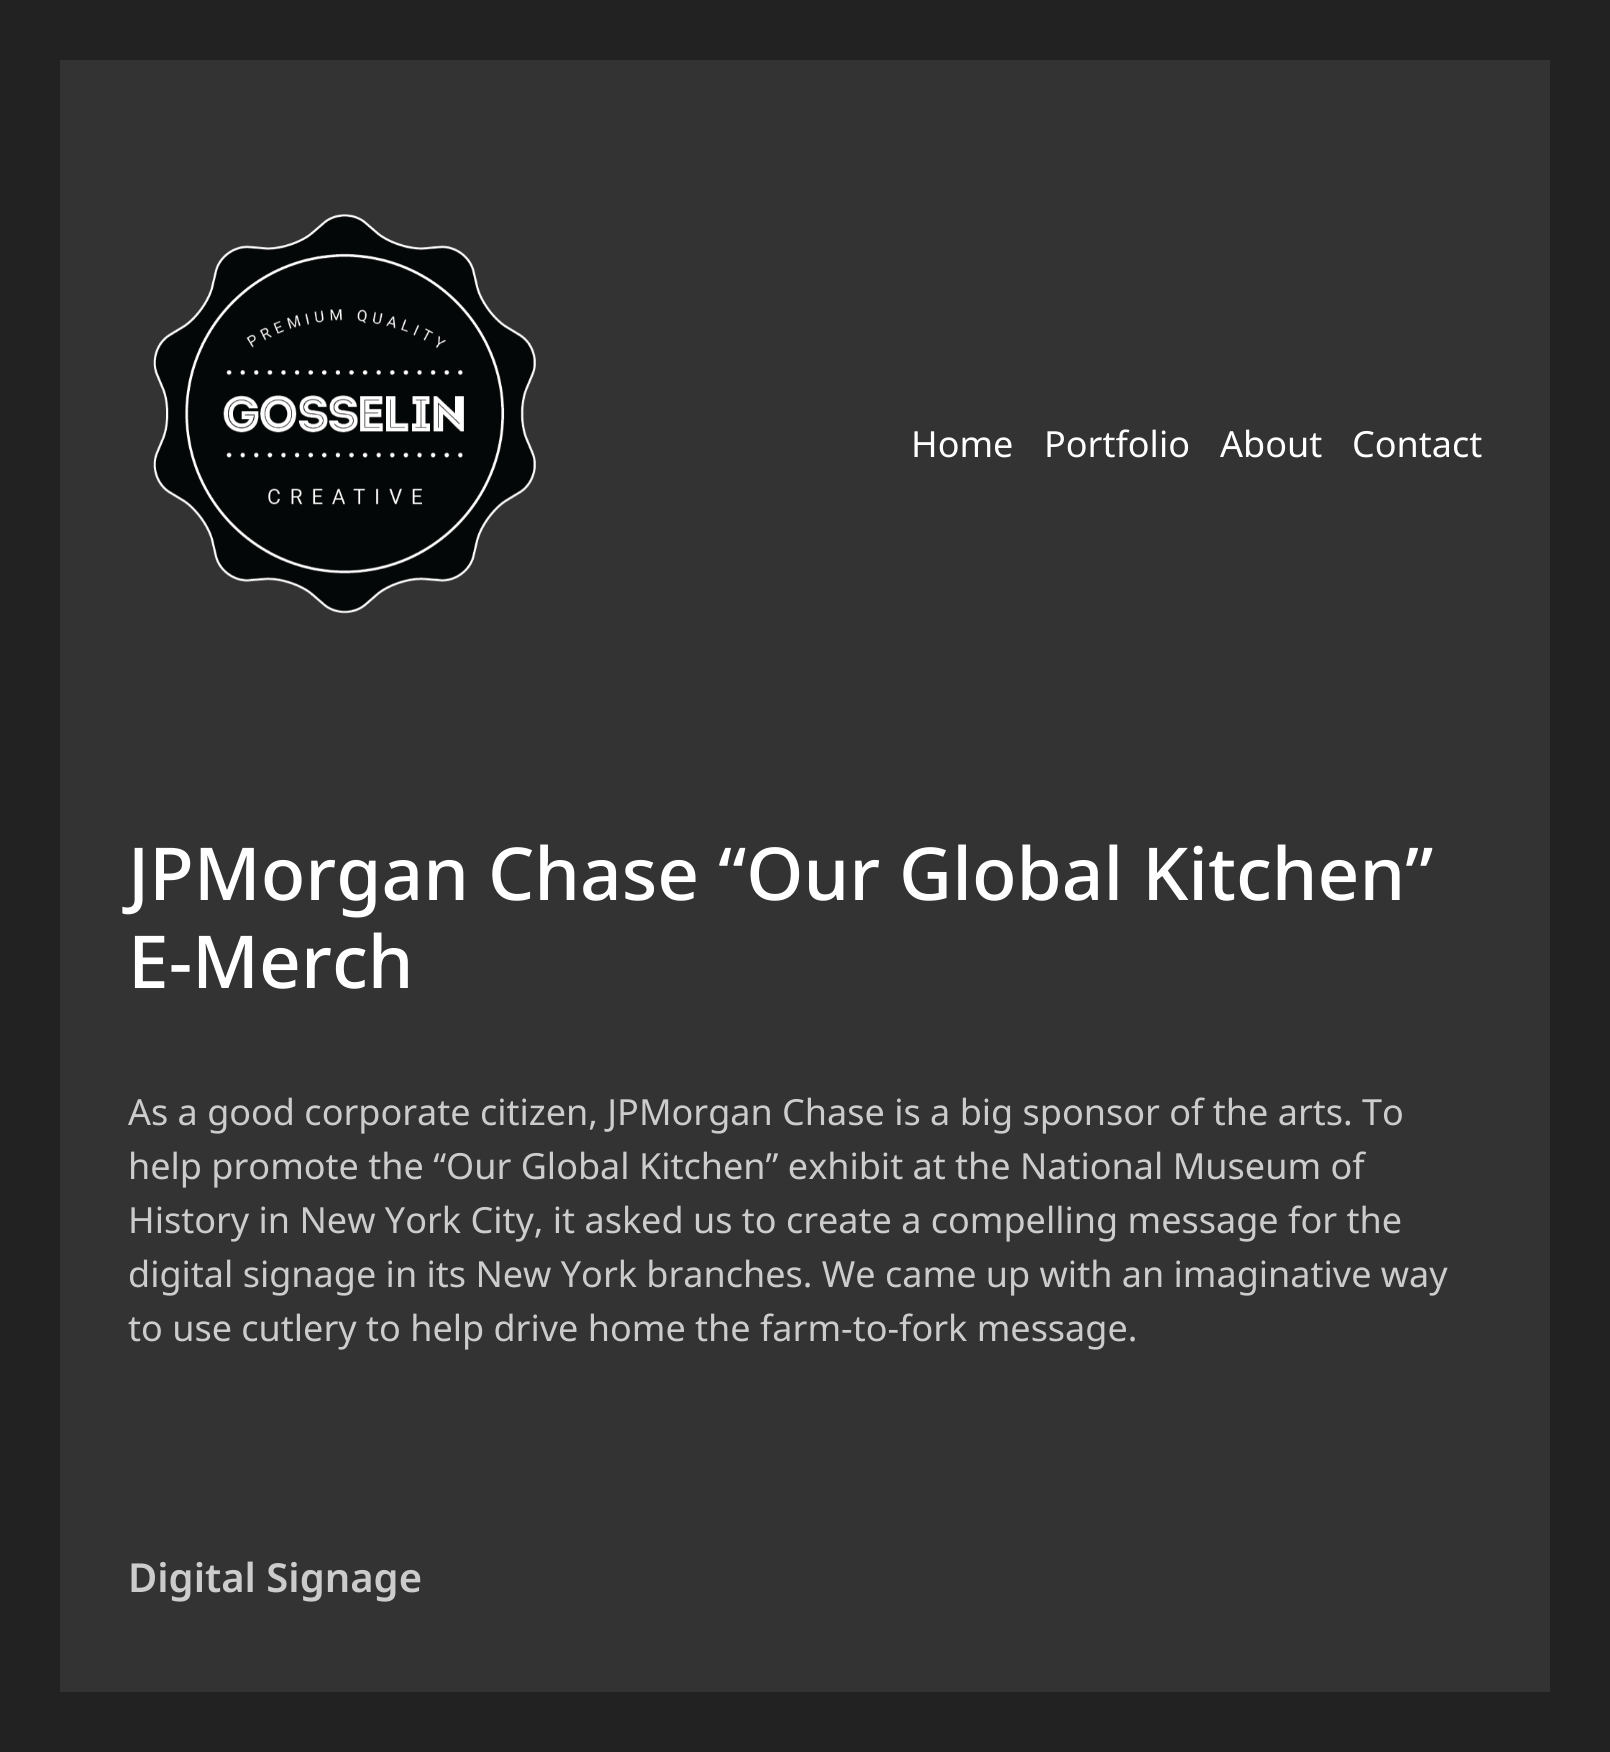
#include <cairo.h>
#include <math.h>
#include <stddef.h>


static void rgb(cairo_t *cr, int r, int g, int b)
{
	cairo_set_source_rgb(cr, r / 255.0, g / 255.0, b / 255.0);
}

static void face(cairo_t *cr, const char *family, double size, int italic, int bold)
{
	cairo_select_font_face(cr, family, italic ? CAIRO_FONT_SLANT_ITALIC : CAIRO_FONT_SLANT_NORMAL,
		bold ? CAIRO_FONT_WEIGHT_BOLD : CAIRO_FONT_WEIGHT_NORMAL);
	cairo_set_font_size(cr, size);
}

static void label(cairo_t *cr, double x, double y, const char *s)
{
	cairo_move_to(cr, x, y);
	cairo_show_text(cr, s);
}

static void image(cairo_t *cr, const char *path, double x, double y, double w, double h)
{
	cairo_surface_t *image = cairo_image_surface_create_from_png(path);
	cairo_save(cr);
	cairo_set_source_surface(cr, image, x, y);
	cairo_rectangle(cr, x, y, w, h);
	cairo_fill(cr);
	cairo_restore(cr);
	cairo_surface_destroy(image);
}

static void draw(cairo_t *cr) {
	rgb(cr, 51, 51, 51);
	cairo_paint(cr);
	image(cr, "image0.png", 153, 214, 383, 400);
	cairo_rectangle(cr, 30, 30, 1550, 1692);
	rgb(cr, 34, 34, 34);
	cairo_set_line_width(cr, 60);
	cairo_stroke(cr);
	face(cr, "Noto Sans", 36, 0, 0);
	rgb(cr, 255, 255, 255);
	label(cr, 911, 457, "Home");
	label(cr, 1044, 457, "Portfolio");
	label(cr, 1220, 457, "About");
	label(cr, 1352, 457, "Contact");
	face(cr, "Noto Sans Medium", 73, 0, 0);
	label(cr, 128, 900, "JPMorgan Chase “Our Global Kitchen”");
	label(cr, 128, 988, "E-Merch");
	face(cr, "Noto Sans", 36, 0, 0);
	rgb(cr, 204, 204, 204);
	label(cr, 128, 1125, "As a good corporate citizen, JPMorgan Chase is a big sponsor of the arts. To");
	label(cr, 128, 1179, "help promote the “Our Global Kitchen” exhibit at the National Museum of");
	label(cr, 128, 1233, "History in New York City, it asked us to create a compelling message for the");
	label(cr, 128, 1287, "digital signage in its New York branches. We came up with an imaginative way");
	label(cr, 128, 1341, "to use cutlery to help drive home the farm-to-fork message.");
	face(cr, "Noto Sans SemiBold", 40, 0, 0);
	label(cr, 128, 1592, "Digital Signage");
}

int main(void) {
	cairo_surface_t *surface = cairo_image_surface_create(CAIRO_FORMAT_RGB24, 1610, 1752);
	cairo_t *cr = cairo_create(surface);
	cairo_font_options_t *options = cairo_font_options_create();
	cairo_font_options_set_hint_metrics(options, CAIRO_HINT_METRICS_OFF);
	cairo_font_options_set_hint_style(options, CAIRO_HINT_STYLE_NONE);
	cairo_set_font_options(cr, options);
	cairo_set_miter_limit(cr, 4);
	draw(cr);
	cairo_surface_write_to_png(surface, "render.png");
	cairo_font_options_destroy(options);
	cairo_destroy(cr);
	cairo_surface_destroy(surface);
	return 0;
}
